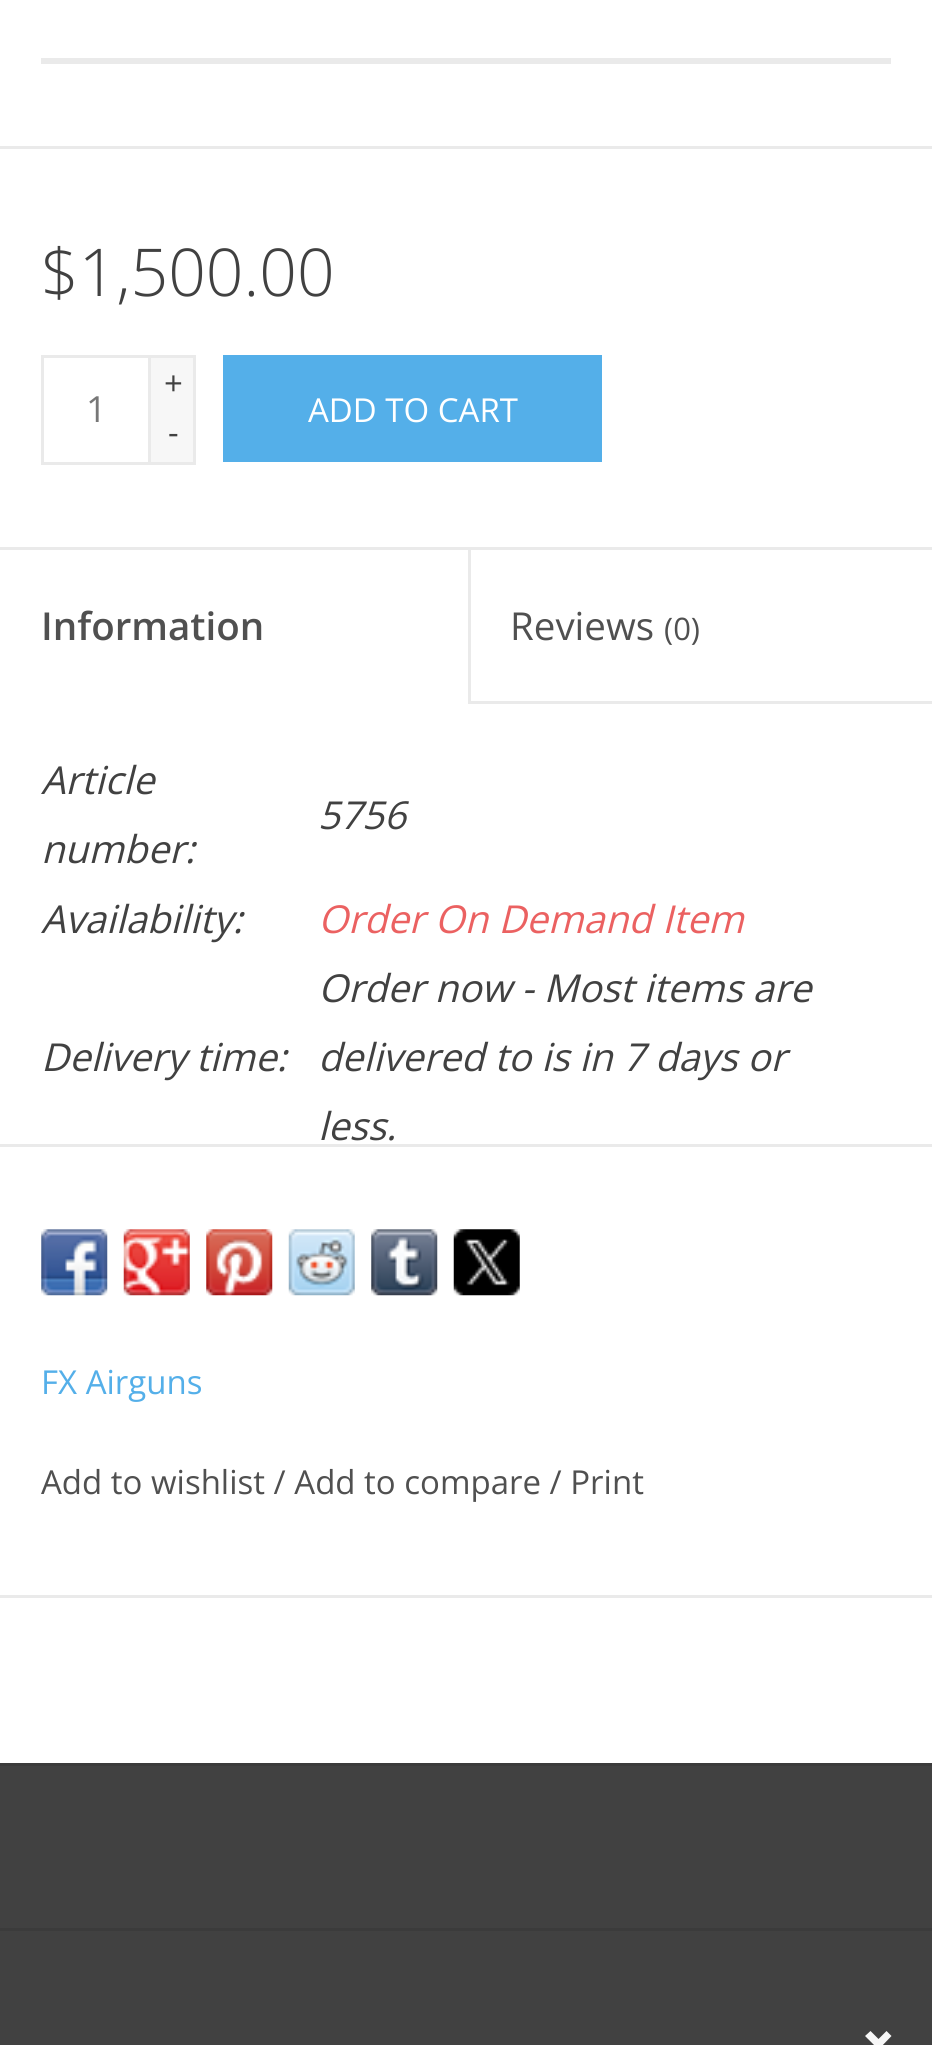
#include <cairo.h>
#include <math.h>
#include <stddef.h>


static void rgb(cairo_t *cr, int r, int g, int b)
{
	cairo_set_source_rgb(cr, r / 255.0, g / 255.0, b / 255.0);
}

static void face(cairo_t *cr, const char *family, double size, int italic, int bold)
{
	cairo_select_font_face(cr, family, italic ? CAIRO_FONT_SLANT_ITALIC : CAIRO_FONT_SLANT_NORMAL,
		bold ? CAIRO_FONT_WEIGHT_BOLD : CAIRO_FONT_WEIGHT_NORMAL);
	cairo_set_font_size(cr, size);
}

static void label(cairo_t *cr, double x, double y, const char *s)
{
	cairo_move_to(cr, x, y);
	cairo_show_text(cr, s);
}

static void rect(cairo_t *cr, double x, double y, double w, double h)
{
	cairo_rectangle(cr, x, y, w, h);
	cairo_fill(cr);
}

static void image(cairo_t *cr, const char *path, double x, double y, double w, double h)
{
	cairo_surface_t *image = cairo_image_surface_create_from_png(path);
	cairo_save(cr);
	cairo_set_source_surface(cr, image, x, y);
	cairo_rectangle(cr, x, y, w, h);
	cairo_fill(cr);
	cairo_restore(cr);
	cairo_surface_destroy(image);
}

static void draw(cairo_t *cr) {
	rgb(cr, 255, 255, 255);
	cairo_paint(cr);
	rgb(cr, 234, 234, 234);
	rect(cr, 41, 58, 850, 6);
	rect(cr, 0, 146, 932, 3);
	face(cr, "Open Sans Light", 66, 0, 0);
	rgb(cr, 65, 65, 65);
	label(cr, 41, 296, "$1,500.00");
	cairo_rectangle(cr, 42.5, 356.5, 107, 107);
	rgb(cr, 234, 234, 234);
	cairo_set_line_width(cr, 3);
	cairo_stroke(cr);
	face(cr, "Open Sans", 36, 0, 0);
	rgb(cr, 119, 119, 119);
	label(cr, 86, 422, "1");
	rgb(cr, 247, 247, 247);
	rect(cr, 151, 358, 42, 104);
	rgb(cr, 234, 234, 234);
	rect(cr, 151, 355, 44, 3);
	rect(cr, 193, 355, 3, 110);
	rect(cr, 151, 462, 44, 3);
	face(cr, "Open Sans", 33, 0, 0);
	rgb(cr, 65, 65, 65);
	label(cr, 164, 395, "+");
	label(cr, 168, 444, "-");
	rgb(cr, 84, 175, 233);
	rect(cr, 223, 355, 379, 107);
	rgb(cr, 255, 255, 255);
	label(cr, 308, 422, "ADD TO CART");
	rgb(cr, 234, 234, 234);
	rect(cr, 0, 547, 932, 3);
	face(cr, "Open Sans SemiBold", 38.5, 0, 0);
	rgb(cr, 80, 80, 80);
	label(cr, 41, 640, "Information");
	rgb(cr, 234, 234, 234);
	rect(cr, 468, 701, 464, 3);
	rect(cr, 468, 550, 3, 154);
	face(cr, "Open Sans", 38.5, 0, 0);
	rgb(cr, 80, 80, 80);
	label(cr, 510, 640, "Reviews");
	face(cr, "Open Sans", 31, 0, 0);
	label(cr, 664, 640, "(0)");
	face(cr, "Open Sans", 38.5, 1, 0);
	rgb(cr, 65, 65, 65);
	label(cr, 41, 794, "Article");
	label(cr, 41, 863, "number:");
	label(cr, 318, 829, "5756");
	label(cr, 41, 933, "Availability:");
	rgb(cr, 235, 97, 97);
	label(cr, 318, 933, "Order On Demand Item");
	rgb(cr, 65, 65, 65);
	label(cr, 41, 1071, "Delivery time:");
	label(cr, 318, 1002, "Order now - Most items are");
	label(cr, 318, 1071, "delivered to is in 7 days or");
	label(cr, 318, 1140, "less.");
	rgb(cr, 234, 234, 234);
	rect(cr, 0, 1144, 932, 3);
	rect(cr, 0, 1595, 932, 3);
	image(cr, "image0.png", 41, 1229, 67, 67);
	image(cr, "image1.png", 123, 1229, 67, 67);
	image(cr, "image2.png", 206, 1229, 67, 67);
	image(cr, "image3.png", 288, 1229, 67, 67);
	image(cr, "image4.png", 371, 1229, 67, 67);
	image(cr, "image5.png", 453, 1229, 67, 67);
	face(cr, "Open Sans", 33, 0, 0);
	rgb(cr, 84, 175, 233);
	label(cr, 41, 1394, "FX Airguns");
	rgb(cr, 80, 80, 80);
	label(cr, 41, 1494, "Add to wishlist / Add to compare / Print");
	rgb(cr, 65, 65, 65);
	rect(cr, 0, 1766, 932, 279);
	rgb(cr, 59, 59, 59);
	rect(cr, 0, 1763, 932, 3);
	rect(cr, 0, 1928, 932, 3);
	rgb(cr, 247, 247, 247);
	cairo_new_path(cr);
	cairo_move_to(cr, 865, 2036);
	cairo_line_to(cr, 878.5, 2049.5);
	cairo_line_to(cr, 891.5, 2036);
	cairo_line_to(cr, 886.5, 2031);
	cairo_line_to(cr, 878.5, 2039);
	cairo_line_to(cr, 870.5, 2031);
	cairo_close_path(cr);
	cairo_fill(cr);
}

int main(void) {
	cairo_surface_t *surface = cairo_image_surface_create(CAIRO_FORMAT_RGB24, 932, 2045);
	cairo_t *cr = cairo_create(surface);
	cairo_font_options_t *options = cairo_font_options_create();
	cairo_font_options_set_hint_metrics(options, CAIRO_HINT_METRICS_OFF);
	cairo_font_options_set_hint_style(options, CAIRO_HINT_STYLE_NONE);
	cairo_set_font_options(cr, options);
	cairo_set_miter_limit(cr, 4);
	draw(cr);
	cairo_surface_write_to_png(surface, "render.png");
	cairo_font_options_destroy(options);
	cairo_destroy(cr);
	cairo_surface_destroy(surface);
	return 0;
}
